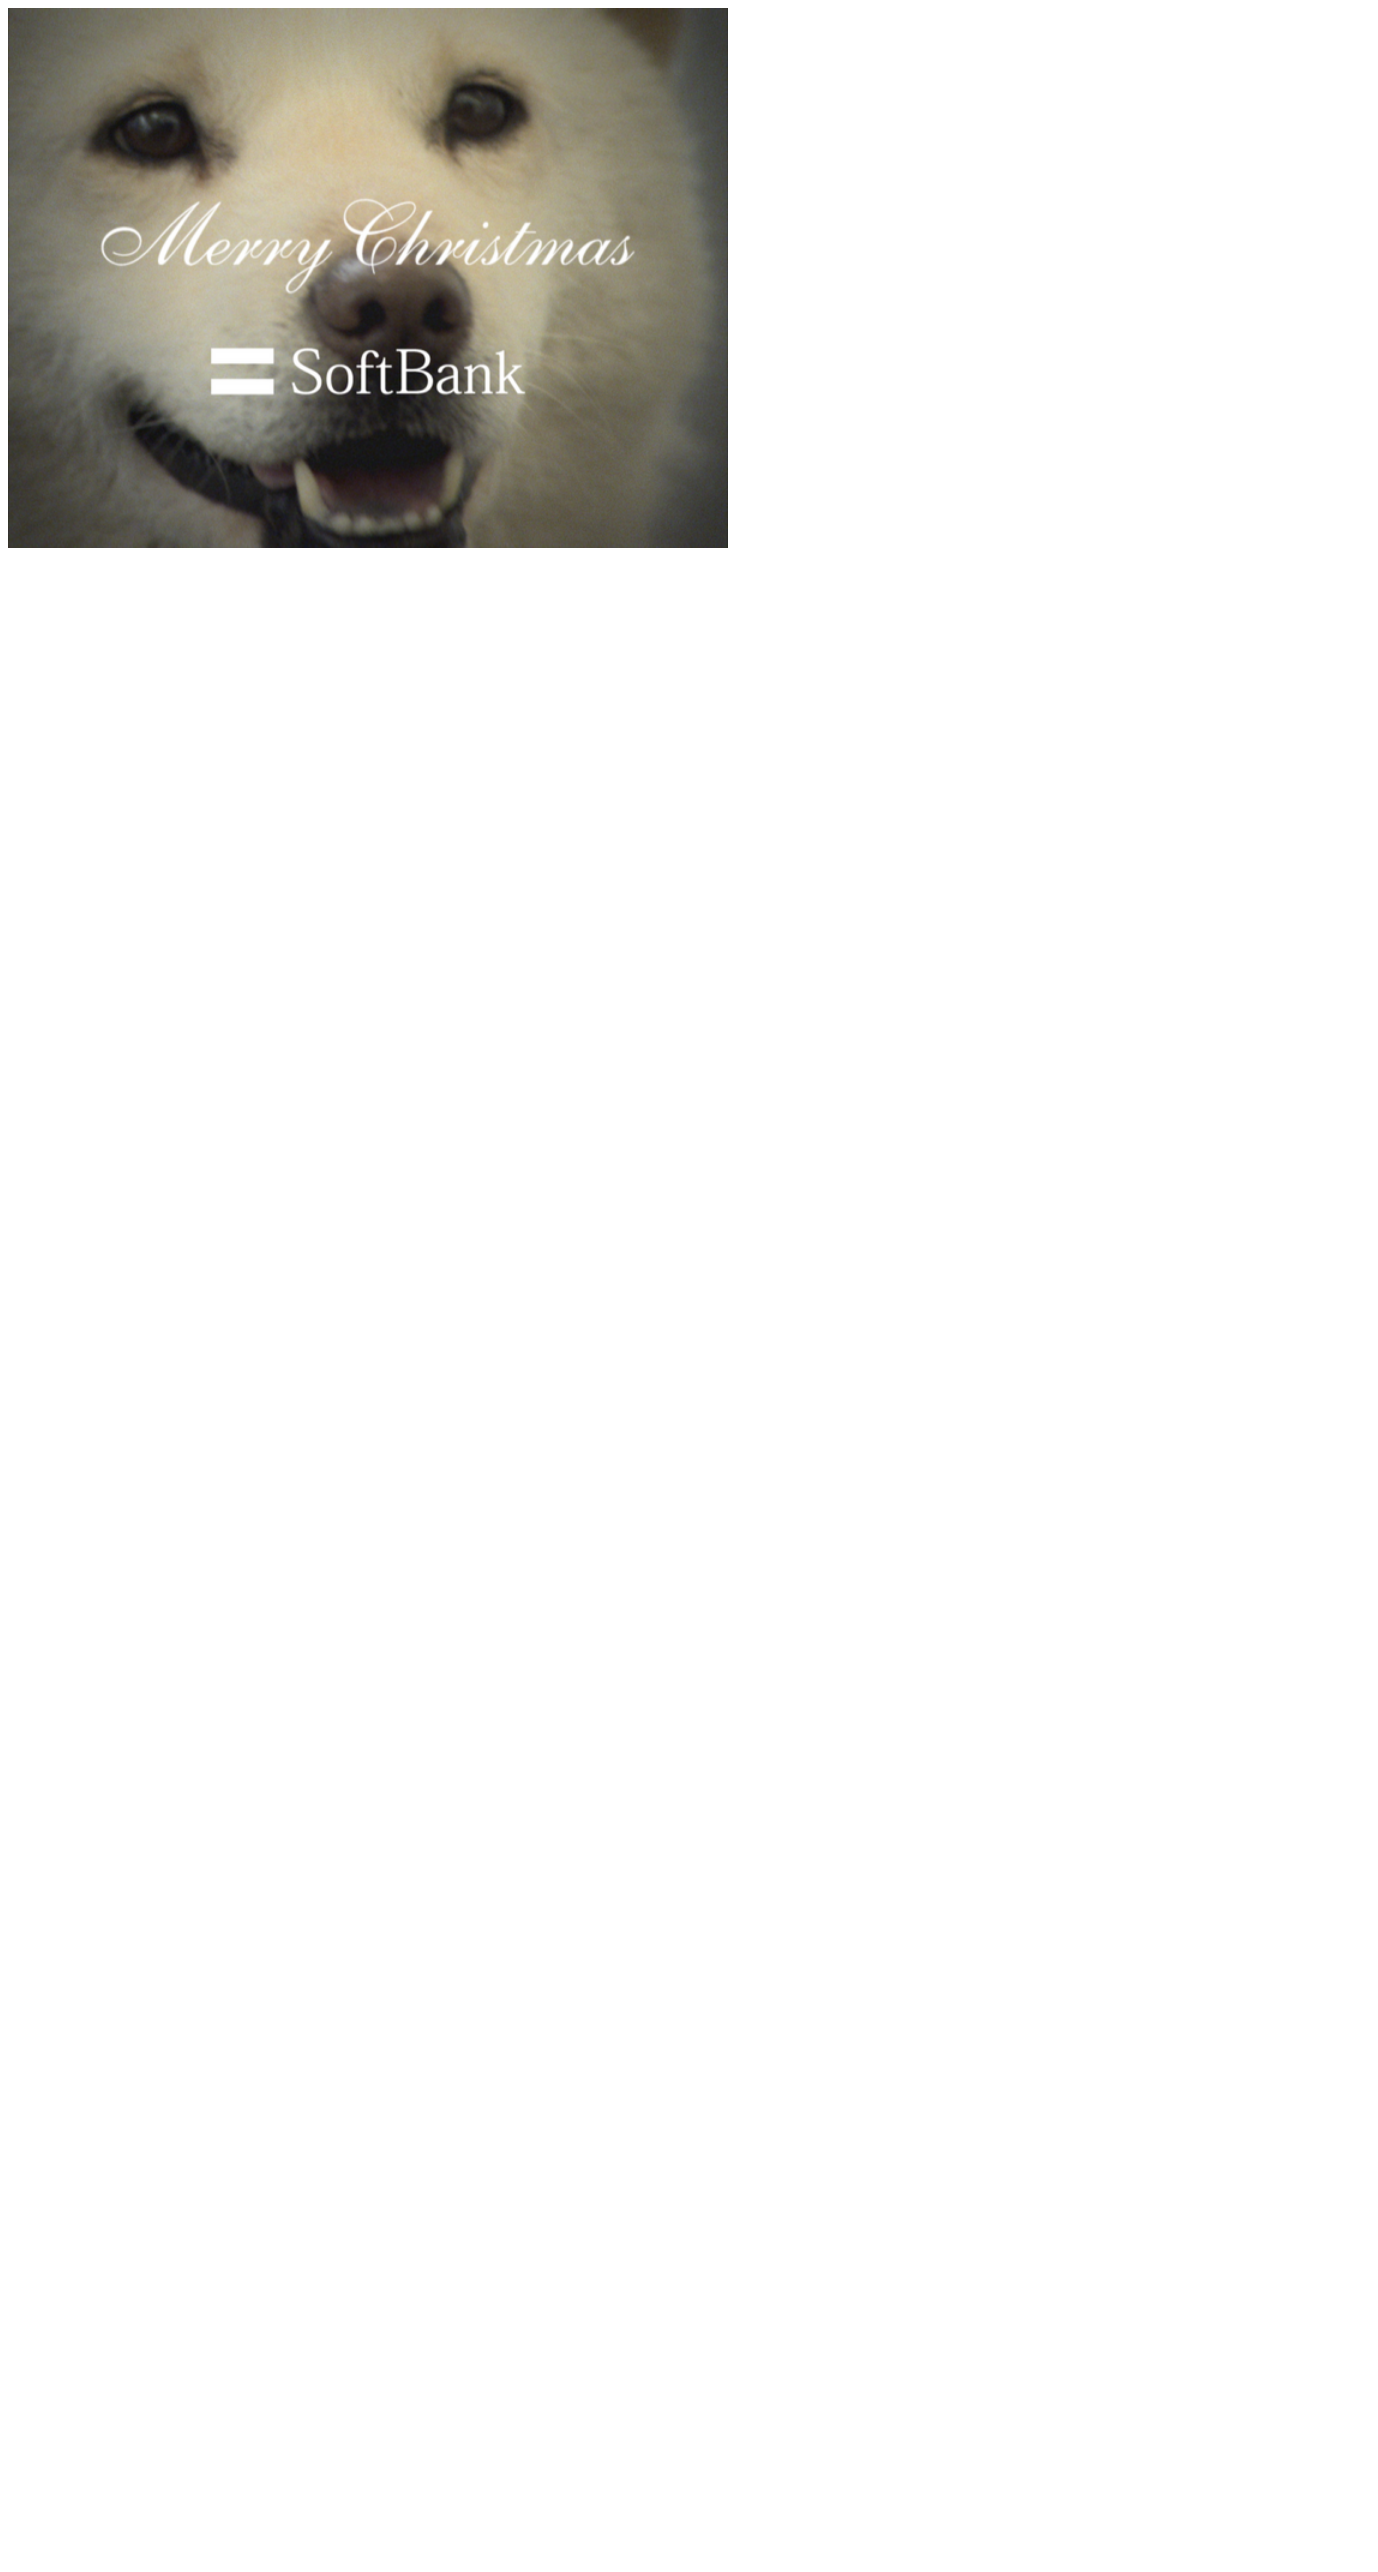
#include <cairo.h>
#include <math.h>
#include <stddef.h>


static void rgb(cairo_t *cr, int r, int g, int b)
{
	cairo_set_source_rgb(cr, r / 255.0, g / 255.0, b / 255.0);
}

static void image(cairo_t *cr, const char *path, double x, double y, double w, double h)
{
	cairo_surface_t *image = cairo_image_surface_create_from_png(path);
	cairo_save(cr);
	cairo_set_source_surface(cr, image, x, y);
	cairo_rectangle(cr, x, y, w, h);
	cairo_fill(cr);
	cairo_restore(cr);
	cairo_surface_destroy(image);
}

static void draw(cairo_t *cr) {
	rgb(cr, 255, 255, 255);
	cairo_paint(cr);
	image(cr, "image0.png", 8, 8, 720, 540);
}

int main(void) {
	cairo_surface_t *surface = cairo_image_surface_create(CAIRO_FORMAT_RGB24, 1378, 2572);
	cairo_t *cr = cairo_create(surface);
	cairo_font_options_t *options = cairo_font_options_create();
	cairo_font_options_set_hint_metrics(options, CAIRO_HINT_METRICS_OFF);
	cairo_font_options_set_hint_style(options, CAIRO_HINT_STYLE_NONE);
	cairo_set_font_options(cr, options);
	cairo_set_miter_limit(cr, 4);
	draw(cr);
	cairo_surface_write_to_png(surface, "render.png");
	cairo_font_options_destroy(options);
	cairo_destroy(cr);
	cairo_surface_destroy(surface);
	return 0;
}
